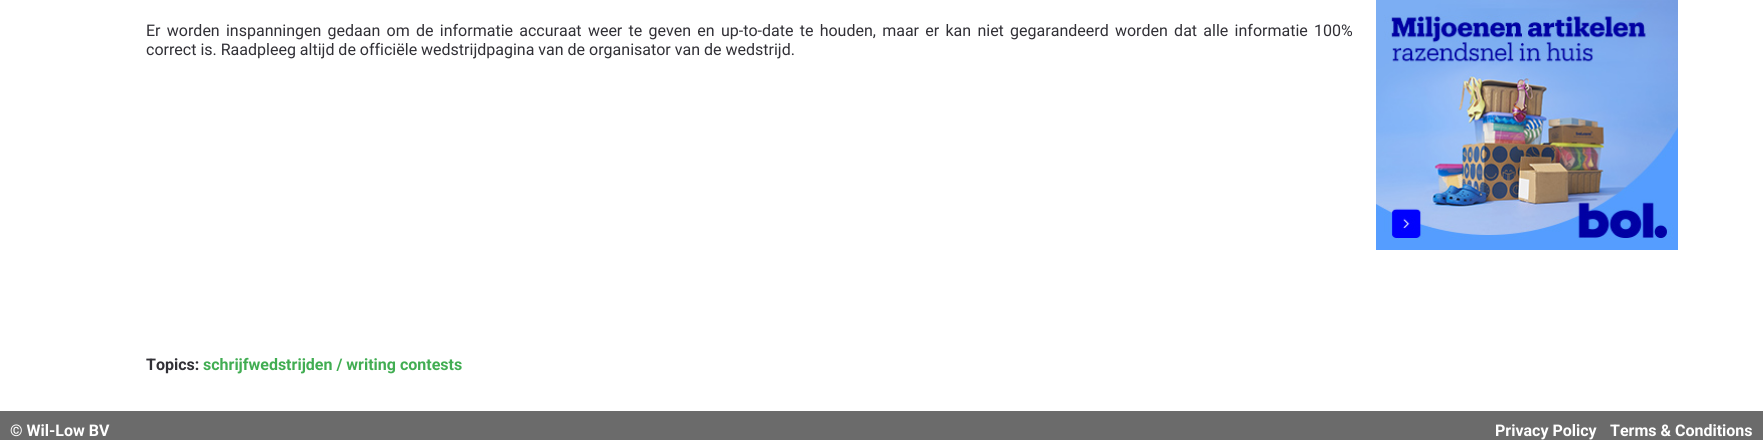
#include <cairo.h>
#include <math.h>
#include <stddef.h>


static void rgb(cairo_t *cr, int r, int g, int b)
{
	cairo_set_source_rgb(cr, r / 255.0, g / 255.0, b / 255.0);
}

static void face(cairo_t *cr, const char *family, double size, int italic, int bold)
{
	cairo_select_font_face(cr, family, italic ? CAIRO_FONT_SLANT_ITALIC : CAIRO_FONT_SLANT_NORMAL,
		bold ? CAIRO_FONT_WEIGHT_BOLD : CAIRO_FONT_WEIGHT_NORMAL);
	cairo_set_font_size(cr, size);
}

static void label(cairo_t *cr, double x, double y, const char *s)
{
	cairo_move_to(cr, x, y);
	cairo_show_text(cr, s);
}

static void tracked(cairo_t *cr, double x, double y, const char *s, double letter, double word)
{
	cairo_move_to(cr, x, y);
	while (*s) {
		char ch[5] = {0};
		int n = 0;
		do ch[n++] = *s++; while ((*s & 0xC0) == 0x80);
		cairo_show_text(cr, ch);
		cairo_rel_move_to(cr, letter + word * (*ch == ' '), 0);
	}
}

static void rect(cairo_t *cr, double x, double y, double w, double h)
{
	cairo_rectangle(cr, x, y, w, h);
	cairo_fill(cr);
}

static void image(cairo_t *cr, const char *path, double x, double y, double w, double h)
{
	cairo_surface_t *image = cairo_image_surface_create_from_png(path);
	cairo_save(cr);
	cairo_set_source_surface(cr, image, x, y);
	cairo_rectangle(cr, x, y, w, h);
	cairo_fill(cr);
	cairo_restore(cr);
	cairo_surface_destroy(image);
}

static void draw(cairo_t *cr) {
	rgb(cr, 255, 255, 255);
	cairo_paint(cr);
	face(cr, "Roboto", 16, 0, 0);
	rgb(cr, 49, 48, 54);
	tracked(cr, 146, 36, "Er worden inspanningen gedaan om de informatie accuraat weer te geven en up-to-date te houden, maar er kan niet gegarandeerd worden dat alle informatie 100%", 0, 2.3);
	label(cr, 146, 55, "correct is. Raadpleeg altijd de officiële wedstrijdpagina van de organisator van de wedstrijd.");
	face(cr, "Roboto", 16, 0, 1);
	label(cr, 146, 370, "Topics:");
	rgb(cr, 65, 173, 82);
	label(cr, 203, 370, "schrijfwedstrijden / writing contests");
	image(cr, "image0.png", 1376, 0, 302, 250);
	rgb(cr, 107, 107, 107);
	rect(cr, 0, 411, 1763, 29);
	rgb(cr, 255, 255, 255);
	label(cr, 10, 436, "© Wil-Low BV");
	label(cr, 1495, 436, "Privacy Policy");
	label(cr, 1610, 436, "Terms & Conditions");
}

int main(void) {
	cairo_surface_t *surface = cairo_image_surface_create(CAIRO_FORMAT_RGB24, 1763, 440);
	cairo_t *cr = cairo_create(surface);
	cairo_font_options_t *options = cairo_font_options_create();
	cairo_font_options_set_hint_metrics(options, CAIRO_HINT_METRICS_OFF);
	cairo_font_options_set_hint_style(options, CAIRO_HINT_STYLE_NONE);
	cairo_set_font_options(cr, options);
	cairo_set_miter_limit(cr, 4);
	draw(cr);
	cairo_surface_write_to_png(surface, "render.png");
	cairo_font_options_destroy(options);
	cairo_destroy(cr);
	cairo_surface_destroy(surface);
	return 0;
}
